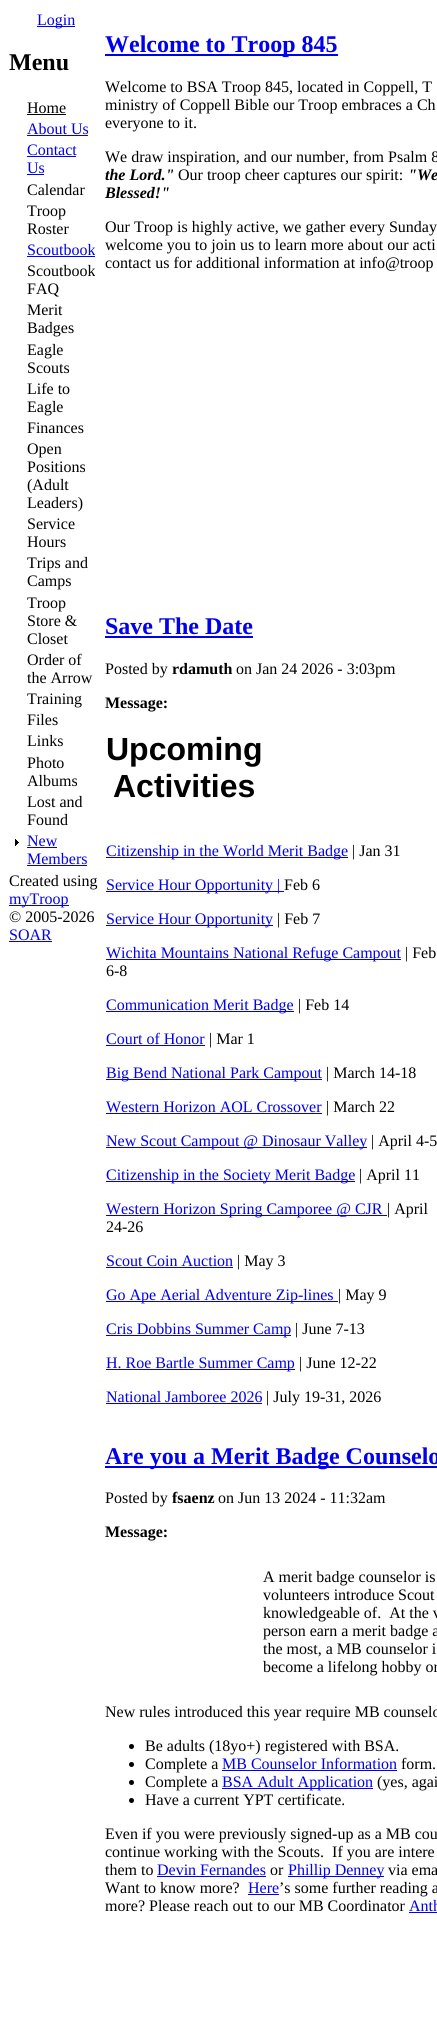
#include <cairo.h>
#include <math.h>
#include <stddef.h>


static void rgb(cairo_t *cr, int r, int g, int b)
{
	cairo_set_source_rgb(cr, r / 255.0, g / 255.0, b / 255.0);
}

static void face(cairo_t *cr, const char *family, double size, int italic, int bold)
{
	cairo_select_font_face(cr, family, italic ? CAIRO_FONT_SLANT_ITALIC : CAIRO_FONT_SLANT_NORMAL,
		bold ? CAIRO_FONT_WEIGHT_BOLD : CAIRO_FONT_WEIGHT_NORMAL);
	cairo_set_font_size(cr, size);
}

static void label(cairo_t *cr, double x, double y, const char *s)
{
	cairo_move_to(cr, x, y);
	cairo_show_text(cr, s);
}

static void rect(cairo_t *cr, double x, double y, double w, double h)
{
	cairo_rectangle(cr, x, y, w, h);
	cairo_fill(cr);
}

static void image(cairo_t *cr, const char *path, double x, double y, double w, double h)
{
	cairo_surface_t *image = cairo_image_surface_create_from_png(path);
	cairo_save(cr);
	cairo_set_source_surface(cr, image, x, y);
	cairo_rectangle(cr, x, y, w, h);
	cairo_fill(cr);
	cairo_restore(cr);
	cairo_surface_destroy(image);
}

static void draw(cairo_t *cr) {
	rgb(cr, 255, 255, 255);
	cairo_paint(cr);
	rgb(cr, 0, 0, 238);
	rect(cr, 37, 26, 38, 1);
	face(cr, "Liberation Serif", 16, 0, 0);
	label(cr, 37, 25, "Login");
	face(cr, "Liberation Serif", 24, 0, 1);
	rgb(cr, 0, 0, 0);
	label(cr, 9, 70, "Menu");
	face(cr, "Liberation Serif", 16, 0, 0);
	label(cr, 27, 113, "Home");
	rect(cr, 27, 114, 39, 1);
	rgb(cr, 0, 0, 238);
	label(cr, 27, 134, "About Us");
	rect(cr, 27, 135, 61, 1);
	label(cr, 27, 155, "Contact");
	rect(cr, 27, 156, 49, 1);
	label(cr, 27, 173, "Us");
	rect(cr, 27, 174, 17, 1);
	rgb(cr, 0, 0, 0);
	label(cr, 27, 195, "Calendar");
	label(cr, 27, 216, "Troop");
	label(cr, 27, 234, "Roster");
	rgb(cr, 0, 0, 238);
	label(cr, 27, 255, "Scoutbook");
	rect(cr, 27, 256, 68, 1);
	rgb(cr, 0, 0, 0);
	label(cr, 27, 276, "Scoutbook");
	label(cr, 27, 294, "FAQ");
	label(cr, 27, 315, "Merit");
	label(cr, 27, 333, "Badges");
	label(cr, 27, 355, "Eagle");
	label(cr, 27, 373, "Scouts");
	label(cr, 27, 394, "Life to");
	label(cr, 27, 412, "Eagle");
	label(cr, 27, 433, "Finances");
	label(cr, 27, 454, "Open");
	label(cr, 27, 472, "Positions");
	label(cr, 27, 490, "(Adult");
	label(cr, 27, 508, "Leaders)");
	label(cr, 27, 529, "Service");
	label(cr, 27, 547, "Hours");
	label(cr, 27, 568, "Trips and");
	label(cr, 27, 586, "Camps");
	label(cr, 27, 608, "Troop");
	label(cr, 27, 626, "Store &");
	label(cr, 27, 644, "Closet");
	label(cr, 27, 665, "Order of");
	label(cr, 27, 683, "the Arrow");
	label(cr, 27, 704, "Training");
	label(cr, 27, 725, "Files");
	label(cr, 27, 746, "Links");
	label(cr, 27, 768, "Photo");
	label(cr, 27, 786, "Albums");
	label(cr, 27, 807, "Lost and");
	label(cr, 27, 825, "Found");
	image(cr, "image0.png", 15, 839, 4, 7);
	rgb(cr, 0, 0, 238);
	label(cr, 27, 846, "New");
	rect(cr, 27, 847, 30, 1);
	label(cr, 27, 864, "Members");
	rect(cr, 27, 865, 60, 1);
	rgb(cr, 0, 0, 0);
	label(cr, 9, 886, "Created using");
	rgb(cr, 0, 0, 238);
	rect(cr, 9, 905, 60, 1);
	label(cr, 9, 904, "myTroop");
	rgb(cr, 0, 0, 0);
	label(cr, 9, 922, "© 2005-2026");
	rgb(cr, 0, 0, 238);
	label(cr, 9, 940, "SOAR");
	rect(cr, 9, 941, 43, 1);
	rect(cr, 105, 54, 233, 2);
	face(cr, "Liberation Serif", 24, 0, 1);
	label(cr, 105, 52, "Welcome to Troop 845");
	face(cr, "Liberation Serif", 16, 0, 0);
	rgb(cr, 0, 0, 0);
	label(cr, 105, 92, "Welcome to BSA Troop 845, located in Coppell, T");
	label(cr, 105, 110, "ministry of Coppell Bible our Troop embraces a Ch");
	label(cr, 105, 128, "everyone to it.");
	label(cr, 105, 162, "We draw inspiration, and our number, from Psalm 8");
	face(cr, "Liberation Serif", 16, 1, 1);
	label(cr, 105, 180, "the Lord.\"");
	face(cr, "Liberation Serif", 16, 0, 0);
	label(cr, 178, 180, "Our troop cheer captures our spirit:");
	face(cr, "Liberation Serif", 16, 1, 1);
	label(cr, 408, 180, "\"We");
	label(cr, 105, 198, "Blessed!\"");
	face(cr, "Liberation Serif", 16, 0, 0);
	label(cr, 105, 232, "Our Troop is highly active, we gather every Sunday");
	label(cr, 105, 250, "welcome you to join us to learn more about our acti");
	label(cr, 105, 268, "contact us for additional information at info@troop");
	face(cr, "Liberation Serif", 24, 0, 1);
	rgb(cr, 0, 0, 238);
	label(cr, 105, 634, "Save The Date");
	rect(cr, 105, 636, 148, 2);
	face(cr, "Liberation Serif", 16, 0, 0);
	rgb(cr, 0, 0, 0);
	label(cr, 105, 674, "Posted by");
	face(cr, "Liberation Serif", 16, 0, 1);
	label(cr, 172, 674, "rdamuth");
	face(cr, "Liberation Serif", 16, 0, 0);
	label(cr, 236, 674, "on Jan 24 2026 - 3:03pm");
	face(cr, "Liberation Serif", 16, 0, 1);
	label(cr, 105, 708, "Message:");
	face(cr, "Liberation Sans", 32, 0, 1);
	label(cr, 106, 760, "Upcoming");
	label(cr, 113, 797, "Activities");
	rgb(cr, 0, 0, 238);
	rect(cr, 106, 857, 242, 1);
	face(cr, "Liberation Serif", 16, 0, 0);
	label(cr, 106, 856, "Citizenship in the World Merit Badge");
	rgb(cr, 0, 0, 0);
	label(cr, 352, 856, "| Jan 31");
	rgb(cr, 0, 0, 238);
	rect(cr, 106, 891, 167, 1);
	label(cr, 106, 890, "Service Hour Opportunity");
	rect(cr, 273, 891, 11, 1);
	label(cr, 277, 890, "|");
	rgb(cr, 0, 0, 0);
	label(cr, 284, 890, "Feb 6");
	rgb(cr, 0, 0, 238);
	rect(cr, 106, 925, 167, 1);
	label(cr, 106, 924, "Service Hour Opportunity");
	rgb(cr, 0, 0, 0);
	label(cr, 277, 924, "| Feb 7");
	rgb(cr, 0, 0, 238);
	rect(cr, 106, 959, 295, 1);
	label(cr, 106, 958, "Wichita Mountains National Refuge Campout");
	rgb(cr, 0, 0, 0);
	label(cr, 405, 958, "| Feb");
	label(cr, 106, 976, "6-8");
	rgb(cr, 0, 0, 238);
	rect(cr, 106, 1011, 188, 1);
	label(cr, 106, 1010, "Communication Merit Badge");
	rgb(cr, 0, 0, 0);
	label(cr, 298, 1010, "| Feb 14");
	rgb(cr, 0, 0, 238);
	label(cr, 106, 1044, "Court of Honor");
	rect(cr, 106, 1045, 99, 1);
	rgb(cr, 0, 0, 0);
	label(cr, 209, 1044, "| Mar 1");
	rgb(cr, 0, 0, 238);
	rect(cr, 106, 1079, 216, 1);
	label(cr, 106, 1078, "Big Bend National Park Campout");
	rgb(cr, 0, 0, 0);
	label(cr, 326, 1078, "| March 14-18");
	rgb(cr, 0, 0, 238);
	label(cr, 106, 1112, "Western Horizon AOL Crossover");
	rect(cr, 106, 1113, 216, 1);
	rgb(cr, 0, 0, 0);
	label(cr, 326, 1112, "| March 22");
	rgb(cr, 0, 0, 238);
	rect(cr, 106, 1147, 261, 1);
	label(cr, 106, 1146, "New Scout Campout @ Dinosaur Valley");
	rgb(cr, 0, 0, 0);
	label(cr, 371, 1146, "| April 4-5");
	rgb(cr, 0, 0, 238);
	rect(cr, 106, 1181, 249, 1);
	label(cr, 106, 1180, "Citizenship in the Society Merit Badge");
	rgb(cr, 0, 0, 0);
	label(cr, 359, 1180, "| April 11");
	rgb(cr, 0, 0, 238);
	rect(cr, 106, 1215, 281, 1);
	label(cr, 106, 1214, "Western Horizon Spring Camporee @ CJR");
	rgb(cr, 0, 0, 0);
	label(cr, 387, 1214, "| April");
	label(cr, 106, 1232, "24-26");
	rgb(cr, 0, 0, 238);
	label(cr, 106, 1266, "Scout Coin Auction");
	rect(cr, 106, 1267, 127, 1);
	rgb(cr, 0, 0, 0);
	label(cr, 237, 1266, "| May 3");
	rgb(cr, 0, 0, 238);
	rect(cr, 106, 1301, 232, 1);
	label(cr, 106, 1300, "Go Ape Aerial Adventure Zip-lines");
	rgb(cr, 0, 0, 0);
	label(cr, 338, 1300, "| May 9");
	rgb(cr, 0, 0, 238);
	rect(cr, 106, 1335, 185, 1);
	label(cr, 106, 1334, "Cris Dobbins Summer Camp");
	rgb(cr, 0, 0, 0);
	label(cr, 295, 1334, "| June 7-13");
	rgb(cr, 0, 0, 238);
	rect(cr, 106, 1369, 189, 1);
	label(cr, 106, 1368, "H. Roe Bartle Summer Camp");
	rgb(cr, 0, 0, 0);
	label(cr, 299, 1368, "| June 12-22");
	rgb(cr, 0, 0, 238);
	label(cr, 106, 1402, "National Jamboree 2026");
	rect(cr, 106, 1403, 156, 1);
	rgb(cr, 0, 0, 0);
	label(cr, 266, 1402, "| July 19-31, 2026");
	rgb(cr, 0, 0, 238);
	rect(cr, 105, 1466, 332, 2);
	face(cr, "Liberation Serif", 24, 0, 1);
	label(cr, 105, 1464, "Are you a Merit Badge Counselo");
	face(cr, "Liberation Serif", 16, 0, 0);
	rgb(cr, 0, 0, 0);
	label(cr, 105, 1503, "Posted by");
	face(cr, "Liberation Serif", 16, 0, 1);
	label(cr, 172, 1503, "fsaenz");
	face(cr, "Liberation Serif", 16, 0, 0);
	label(cr, 218, 1503, "on Jun 13 2024 - 11:32am");
	face(cr, "Liberation Serif", 16, 0, 1);
	label(cr, 105, 1537, "Message:");
	face(cr, "Liberation Serif", 16, 0, 0);
	label(cr, 263, 1582, "A merit badge counselor is");
	label(cr, 263, 1600, "volunteers introduce Scout");
	label(cr, 263, 1618, "knowledgeable of.  At the v");
	label(cr, 263, 1636, "person earn a merit badge a");
	label(cr, 263, 1654, "the most, a MB counselor i");
	label(cr, 263, 1672, "become a lifelong hobby or");
	label(cr, 105, 1717, "New rules introduced this year require MB counselo");
	cairo_new_path(cr);
	cairo_arc(cr, 131.5, 1746.5, 2.5, 0, 2 * M_PI);
	cairo_fill(cr);
	label(cr, 145, 1751, "Be adults (18yo+) registered with BSA.");
	cairo_new_path(cr);
	cairo_arc(cr, 131.5, 1764.5, 2.5, 0, 2 * M_PI);
	cairo_fill(cr);
	label(cr, 145, 1769, "Complete a");
	rgb(cr, 0, 0, 238);
	label(cr, 222, 1769, "MB Counselor Information");
	rect(cr, 222, 1770, 175, 1);
	rgb(cr, 0, 0, 0);
	label(cr, 401, 1769, "form.");
	cairo_new_path(cr);
	cairo_arc(cr, 131.5, 1782.5, 2.5, 0, 2 * M_PI);
	cairo_fill(cr);
	label(cr, 145, 1787, "Complete a");
	rgb(cr, 0, 0, 238);
	rect(cr, 222, 1788, 151, 1);
	label(cr, 222, 1787, "BSA Adult Application");
	rgb(cr, 0, 0, 0);
	label(cr, 377, 1787, "(yes, agai");
	cairo_new_path(cr);
	cairo_arc(cr, 131.5, 1800.5, 2.5, 0, 2 * M_PI);
	cairo_fill(cr);
	label(cr, 145, 1805, "Have a current YPT certificate.");
	label(cr, 105, 1839, "Even if you were previously signed-up as a MB cou");
	label(cr, 105, 1857, "continue working with the Scouts.  If you are intere");
	label(cr, 105, 1875, "them to");
	rgb(cr, 0, 0, 238);
	label(cr, 157, 1875, "Devin Fernandes");
	rect(cr, 157, 1876, 109, 1);
	rgb(cr, 0, 0, 0);
	label(cr, 270, 1875, "or");
	rgb(cr, 0, 0, 238);
	rect(cr, 288, 1876, 96, 1);
	label(cr, 288, 1875, "Phillip Denney");
	rgb(cr, 0, 0, 0);
	label(cr, 388, 1875, "via ema");
	label(cr, 105, 1893, "Want to know more?");
	rgb(cr, 0, 0, 238);
	label(cr, 248, 1893, "Here");
	rect(cr, 248, 1894, 31, 1);
	rgb(cr, 0, 0, 0);
	label(cr, 279, 1893, "’s some further reading a");
	label(cr, 105, 1911, "more? Please reach out to our MB Coordinator");
	rgb(cr, 0, 0, 238);
	label(cr, 409, 1911, "Anth");
	rect(cr, 409, 1912, 28, 1);
}

int main(void) {
	cairo_surface_t *surface = cairo_image_surface_create(CAIRO_FORMAT_RGB24, 437, 2037);
	cairo_t *cr = cairo_create(surface);
	cairo_font_options_t *options = cairo_font_options_create();
	cairo_font_options_set_hint_metrics(options, CAIRO_HINT_METRICS_OFF);
	cairo_font_options_set_hint_style(options, CAIRO_HINT_STYLE_NONE);
	cairo_set_font_options(cr, options);
	cairo_set_miter_limit(cr, 4);
	draw(cr);
	cairo_surface_write_to_png(surface, "render.png");
	cairo_font_options_destroy(options);
	cairo_destroy(cr);
	cairo_surface_destroy(surface);
	return 0;
}
